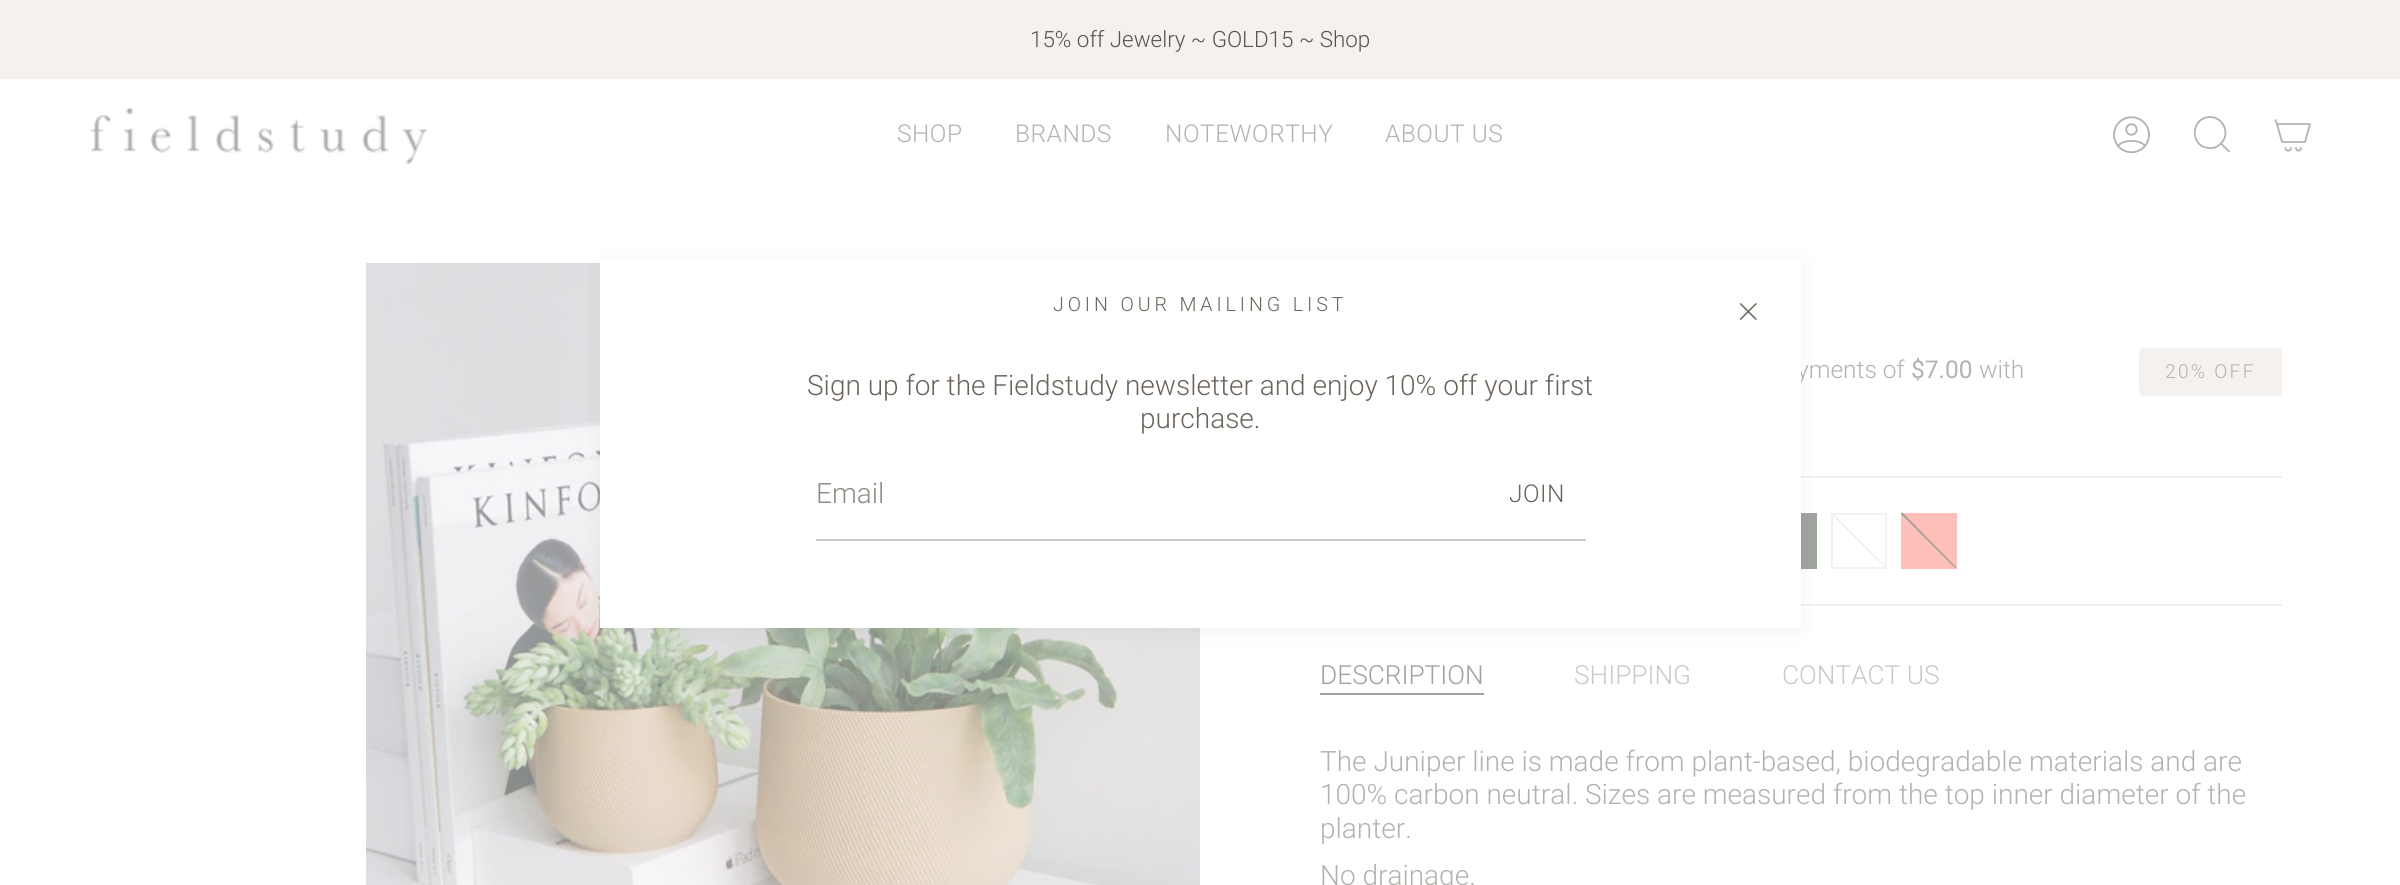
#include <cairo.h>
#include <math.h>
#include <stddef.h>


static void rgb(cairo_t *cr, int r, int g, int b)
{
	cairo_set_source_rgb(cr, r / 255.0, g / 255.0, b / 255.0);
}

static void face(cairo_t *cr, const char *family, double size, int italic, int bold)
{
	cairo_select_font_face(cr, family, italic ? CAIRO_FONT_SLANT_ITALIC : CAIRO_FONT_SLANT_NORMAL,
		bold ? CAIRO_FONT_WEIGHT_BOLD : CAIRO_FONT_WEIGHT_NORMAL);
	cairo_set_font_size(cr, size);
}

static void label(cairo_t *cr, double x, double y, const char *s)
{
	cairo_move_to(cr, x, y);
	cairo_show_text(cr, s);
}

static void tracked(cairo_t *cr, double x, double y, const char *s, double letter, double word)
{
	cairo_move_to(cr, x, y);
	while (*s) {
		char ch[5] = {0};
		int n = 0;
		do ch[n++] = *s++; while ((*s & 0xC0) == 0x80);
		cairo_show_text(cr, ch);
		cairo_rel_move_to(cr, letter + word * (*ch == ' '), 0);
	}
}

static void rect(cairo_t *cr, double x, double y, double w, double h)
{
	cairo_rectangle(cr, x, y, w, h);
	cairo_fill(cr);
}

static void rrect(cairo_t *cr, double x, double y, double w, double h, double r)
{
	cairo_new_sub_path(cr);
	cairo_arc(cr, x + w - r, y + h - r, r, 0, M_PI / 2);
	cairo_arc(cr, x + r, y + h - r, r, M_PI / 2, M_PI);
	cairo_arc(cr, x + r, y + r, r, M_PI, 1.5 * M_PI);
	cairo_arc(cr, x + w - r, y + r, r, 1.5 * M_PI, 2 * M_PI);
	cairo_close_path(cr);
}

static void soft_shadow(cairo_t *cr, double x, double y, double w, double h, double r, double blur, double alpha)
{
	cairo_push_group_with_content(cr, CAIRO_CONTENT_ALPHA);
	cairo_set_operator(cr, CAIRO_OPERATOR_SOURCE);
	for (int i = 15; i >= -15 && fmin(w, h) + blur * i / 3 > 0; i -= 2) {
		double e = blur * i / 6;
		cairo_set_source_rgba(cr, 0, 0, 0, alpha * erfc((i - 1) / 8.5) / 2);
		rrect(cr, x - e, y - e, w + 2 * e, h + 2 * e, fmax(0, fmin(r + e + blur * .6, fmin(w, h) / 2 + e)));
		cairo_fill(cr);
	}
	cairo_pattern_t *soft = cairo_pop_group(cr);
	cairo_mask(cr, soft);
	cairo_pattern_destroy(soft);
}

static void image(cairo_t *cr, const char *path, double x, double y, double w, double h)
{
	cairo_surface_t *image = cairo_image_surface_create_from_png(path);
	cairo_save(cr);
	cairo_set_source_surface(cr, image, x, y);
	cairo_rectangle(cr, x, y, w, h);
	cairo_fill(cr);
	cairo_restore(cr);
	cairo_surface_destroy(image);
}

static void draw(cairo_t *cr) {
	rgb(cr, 255, 255, 255);
	cairo_paint(cr);
	rgb(cr, 246, 241, 238);
	rect(cr, 0, 0, 2400, 79);
	face(cr, "Roboto Light", 22.4, 0, 0);
	rgb(cr, 84, 84, 84);
	label(cr, 1030, 47, "15% off Jewelry ~ GOLD15 ~ Shop");
	image(cr, "image0.png", 90, 107, 338, 58);
	face(cr, "Roboto Light", 24.5, 0, 0);
	rgb(cr, 181, 178, 173);
	tracked(cr, 897, 142, "SHOP", 0.5, 0);
	tracked(cr, 1015, 142, "BRANDS", 0.5, 0);
	tracked(cr, 1165, 142, "NOTEWORTHY", 0.5, 0);
	tracked(cr, 1385, 142, "ABOUT US", 0.5, 0);
	image(cr, "image1.png", 2113, 116, 37, 38);
	cairo_new_path(cr);
	cairo_move_to(cr, 2210, 117);
	cairo_curve_to(cr, 2224.5, 117, 2231.5, 136.5, 2219, 145);
	cairo_curve_to(cr, 2216.5, 147.5, 2213, 148.5, 2209.5, 148);
	cairo_curve_to(cr, 2189.5, 147.5, 2190, 117.5, 2210, 117);
	cairo_close_path(cr);
	cairo_move_to(cr, 2221, 143.5);
	cairo_line_to(cr, 2229.5, 152);
	cairo_set_line_width(cr, 1.8);
	cairo_stroke(cr);
	cairo_new_path(cr);
	cairo_move_to(cr, 2277, 124);
	cairo_line_to(cr, 2310, 124);
	cairo_line_to(cr, 2305, 142);
	cairo_line_to(cr, 2282, 142);
	cairo_close_path(cr);
	cairo_move_to(cr, 2277, 124);
	cairo_line_to(cr, 2275.5, 120);
	cairo_move_to(cr, 2291, 148);
	cairo_curve_to(cr, 2291, 151.5, 2285.5, 151.5, 2285.5, 148);
	cairo_move_to(cr, 2301, 148);
	cairo_curve_to(cr, 2301, 151.5, 2296, 151.5, 2296, 148);
	cairo_set_line_cap(cr, CAIRO_LINE_CAP_ROUND);
	cairo_set_line_join(cr, CAIRO_LINE_JOIN_ROUND);
	cairo_stroke(cr);
	image(cr, "image2.png", 366, 263, 834, 622);
	label(cr, 1797, 378, "yments of");
	face(cr, "Roboto", 24.5, 0, 0);
	label(cr, 1911, 378, "$7.00");
	face(cr, "Roboto Light", 24.5, 0, 0);
	label(cr, 1979, 378, "with");
	rgb(cr, 245, 241, 239);
	rrect(cr, 2139, 348, 143, 48, 5);
	cairo_fill(cr);
	face(cr, "Roboto Light", 19.25, 0, 0);
	rgb(cr, 181, 178, 173);
	tracked(cr, 2165, 378, "20% OFF", 2.25, 0);
	rgb(cr, 241, 241, 241);
	rect(cr, 1801, 476, 481, 2);
	rect(cr, 1801, 604, 481, 2);
	rgb(cr, 160, 164, 159);
	rect(cr, 1801, 513, 16, 56);
	cairo_rectangle(cr, 1832, 514, 54, 54);
	rgb(cr, 241, 241, 241);
	cairo_set_line_width(cr, 2);
	cairo_set_line_cap(cr, CAIRO_LINE_CAP_BUTT);
	cairo_set_line_join(cr, CAIRO_LINE_JOIN_MITER);
	cairo_stroke(cr);
	cairo_new_path(cr);
	cairo_move_to(cr, 1831, 514);
	cairo_line_to(cr, 1832, 512);
	cairo_line_to(cr, 1886, 567);
	cairo_line_to(cr, 1885, 568);
	cairo_close_path(cr);
	cairo_fill(cr);
	rgb(cr, 253, 192, 185);
	rect(cr, 1901, 513, 56, 56);
	rgb(cr, 164, 159, 153);
	cairo_new_path(cr);
	cairo_move_to(cr, 1901, 514);
	cairo_line_to(cr, 1902, 512);
	cairo_line_to(cr, 1956, 567);
	cairo_line_to(cr, 1955, 568);
	cairo_close_path(cr);
	cairo_fill(cr);
	face(cr, "Roboto Light", 26.25, 0, 0);
	label(cr, 1320, 684, "DESCRIPTION");
	rect(cr, 1320, 693, 164, 2);
	rgb(cr, 203, 201, 198);
	label(cr, 1574, 684, "SHIPPING");
	label(cr, 1782, 684, "CONTACT US");
	face(cr, "Roboto Light", 28, 0, 0);
	rgb(cr, 181, 178, 173);
	label(cr, 1320, 771, "The Juniper line is made from plant-based, biodegradable materials and are");
	label(cr, 1320, 804, "100% carbon neutral. Sizes are measured from the top inner diameter of the");
	label(cr, 1320, 838, "planter.");
	label(cr, 1320, 885, "No drainage.");
	rgb(cr, 0, 0, 0);
	soft_shadow(cr, 600, 263, 1201, 369, 0, 9, 0.05);
	rgb(cr, 255, 255, 255);
	rect(cr, 600, 259, 1201, 369);
	face(cr, "Roboto Light", 19.6, 0, 0);
	rgb(cr, 107, 100, 91);
	tracked(cr, 1053, 311, "JOIN OUR MAILING LIST", 3.9, 0);
	face(cr, "Roboto Light", 28, 0, 0);
	label(cr, 807, 395, "Sign up for the Fieldstudy newsletter and enjoy 10% off your first");
	label(cr, 1140, 428, "purchase.");
	rgb(cr, 203, 201, 198);
	rect(cr, 816, 539, 770, 2);
	rgb(cr, 144, 139, 132);
	label(cr, 816, 503, "Email");
	face(cr, "Roboto Light", 24.5, 0, 0);
	rgb(cr, 107, 100, 91);
	tracked(cr, 1509, 502, "JOIN", 0.5, 0);
	image(cr, "image3.png", 1739, 303, 18, 17);
}

int main(void) {
	cairo_surface_t *surface = cairo_image_surface_create(CAIRO_FORMAT_RGB24, 2400, 885);
	cairo_t *cr = cairo_create(surface);
	cairo_font_options_t *options = cairo_font_options_create();
	cairo_font_options_set_hint_metrics(options, CAIRO_HINT_METRICS_OFF);
	cairo_font_options_set_hint_style(options, CAIRO_HINT_STYLE_NONE);
	cairo_set_font_options(cr, options);
	cairo_set_miter_limit(cr, 4);
	draw(cr);
	cairo_surface_write_to_png(surface, "render.png");
	cairo_font_options_destroy(options);
	cairo_destroy(cr);
	cairo_surface_destroy(surface);
	return 0;
}
